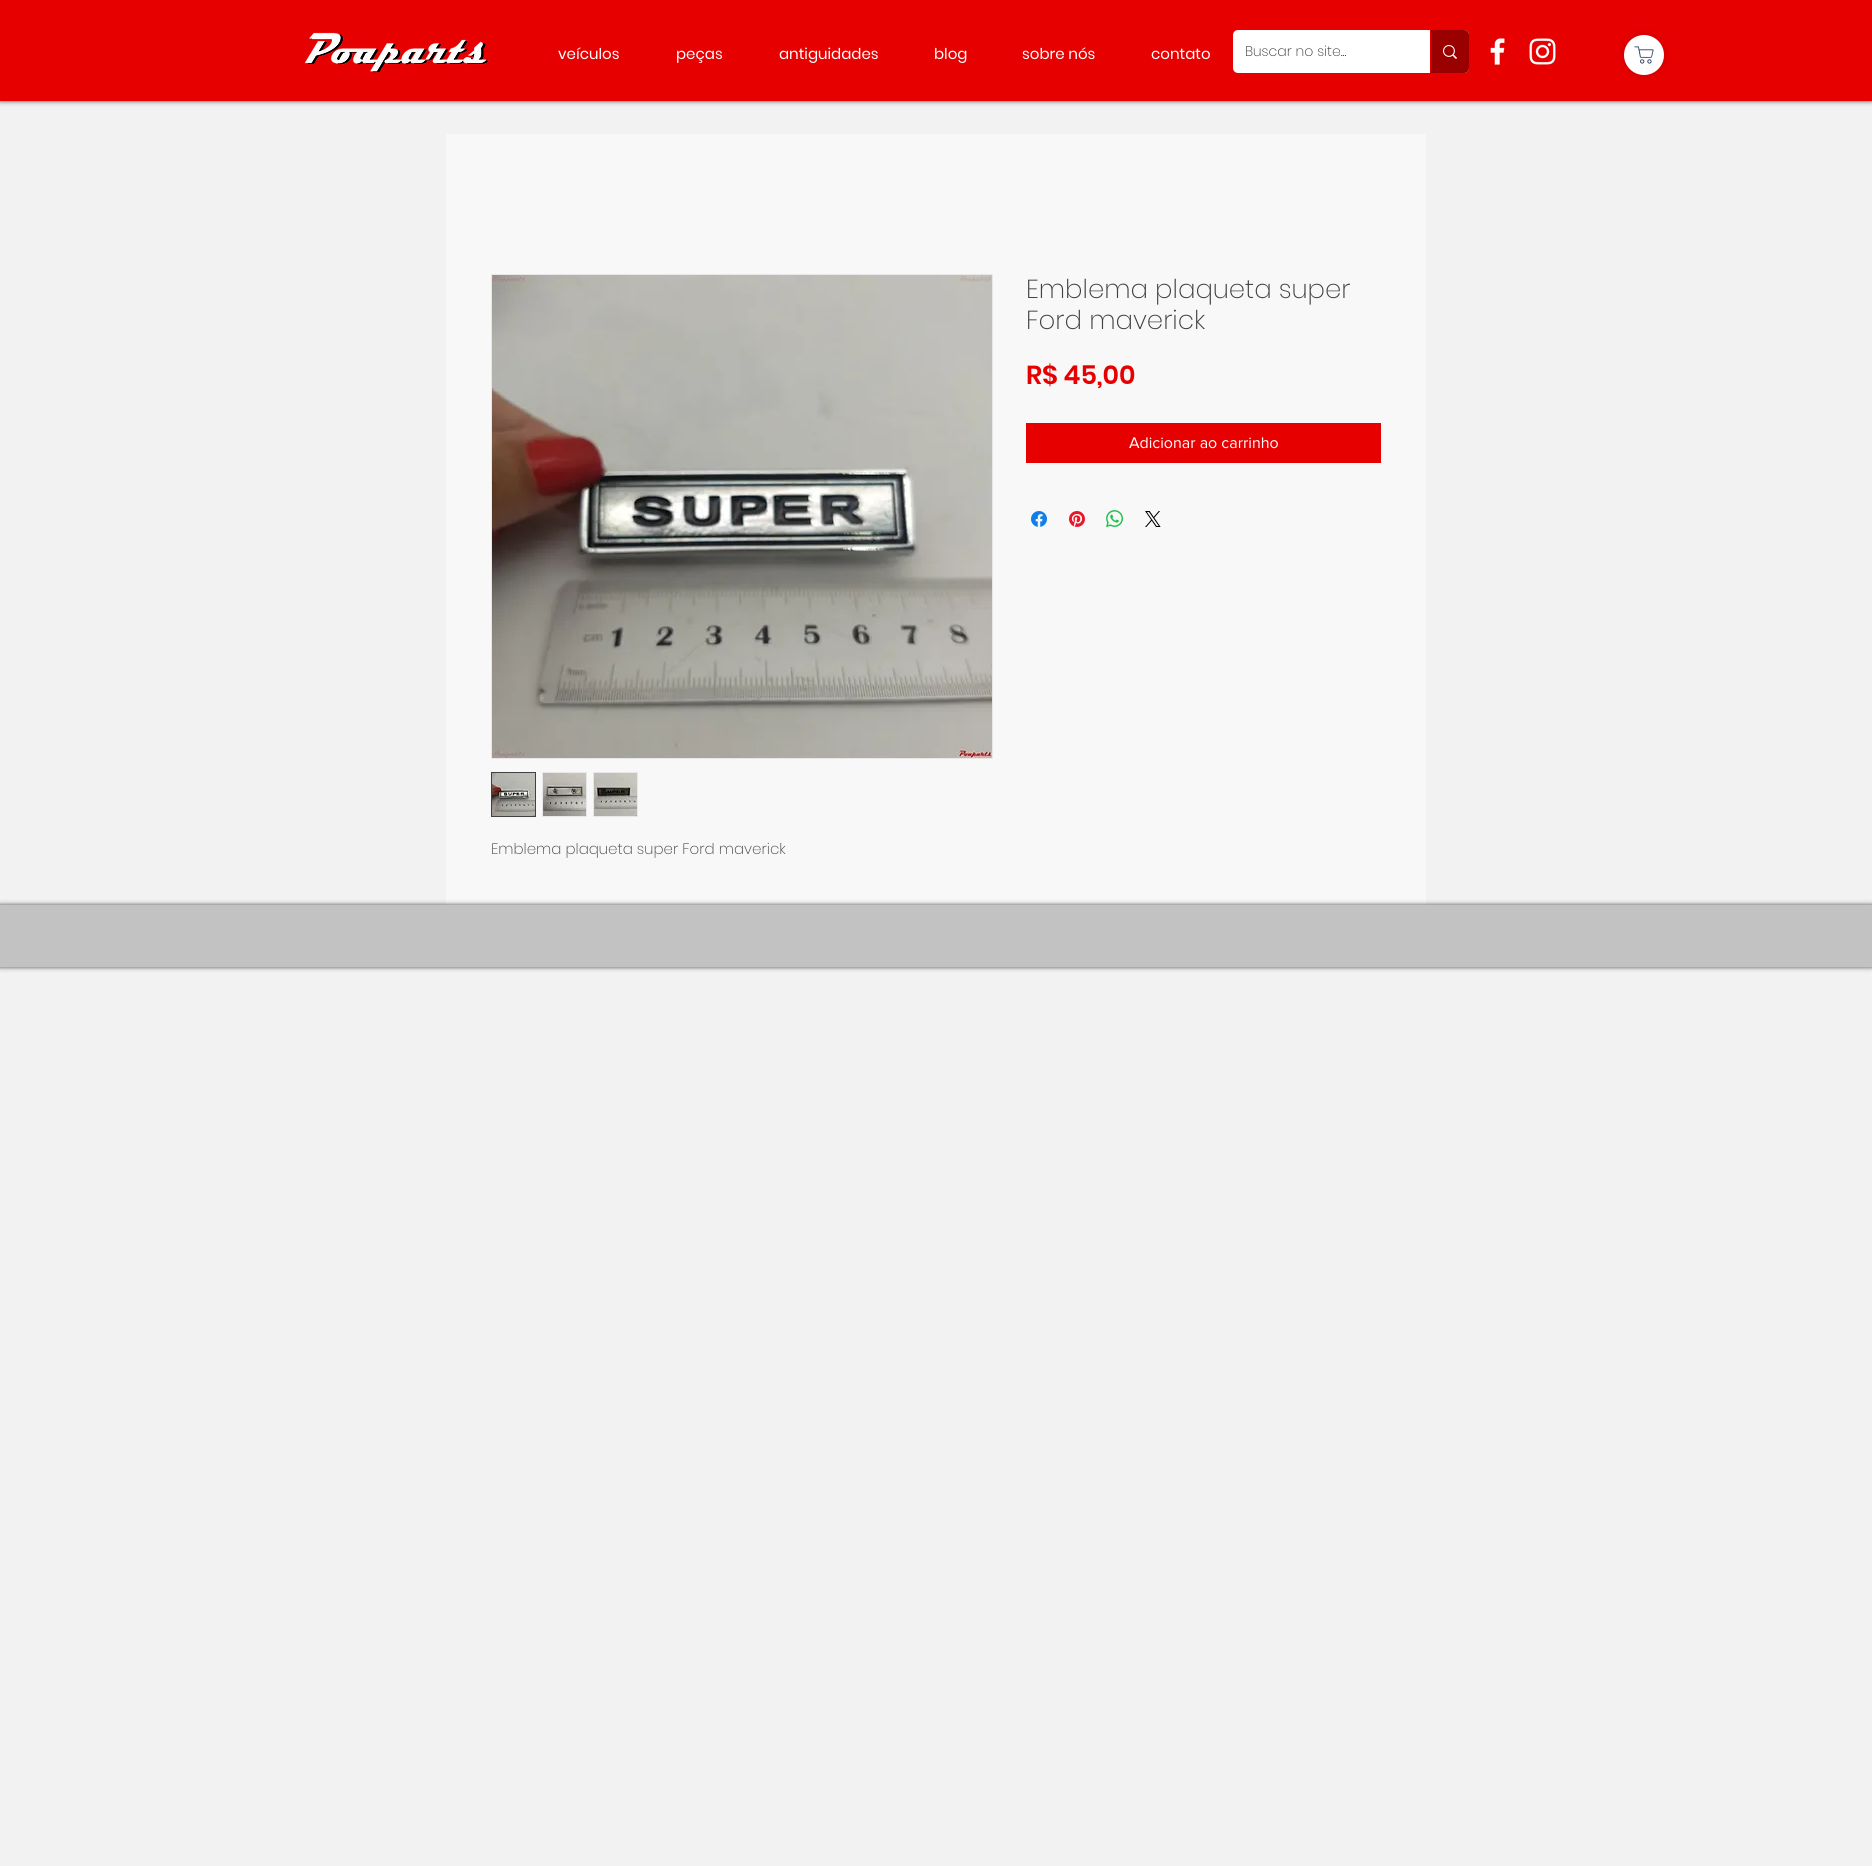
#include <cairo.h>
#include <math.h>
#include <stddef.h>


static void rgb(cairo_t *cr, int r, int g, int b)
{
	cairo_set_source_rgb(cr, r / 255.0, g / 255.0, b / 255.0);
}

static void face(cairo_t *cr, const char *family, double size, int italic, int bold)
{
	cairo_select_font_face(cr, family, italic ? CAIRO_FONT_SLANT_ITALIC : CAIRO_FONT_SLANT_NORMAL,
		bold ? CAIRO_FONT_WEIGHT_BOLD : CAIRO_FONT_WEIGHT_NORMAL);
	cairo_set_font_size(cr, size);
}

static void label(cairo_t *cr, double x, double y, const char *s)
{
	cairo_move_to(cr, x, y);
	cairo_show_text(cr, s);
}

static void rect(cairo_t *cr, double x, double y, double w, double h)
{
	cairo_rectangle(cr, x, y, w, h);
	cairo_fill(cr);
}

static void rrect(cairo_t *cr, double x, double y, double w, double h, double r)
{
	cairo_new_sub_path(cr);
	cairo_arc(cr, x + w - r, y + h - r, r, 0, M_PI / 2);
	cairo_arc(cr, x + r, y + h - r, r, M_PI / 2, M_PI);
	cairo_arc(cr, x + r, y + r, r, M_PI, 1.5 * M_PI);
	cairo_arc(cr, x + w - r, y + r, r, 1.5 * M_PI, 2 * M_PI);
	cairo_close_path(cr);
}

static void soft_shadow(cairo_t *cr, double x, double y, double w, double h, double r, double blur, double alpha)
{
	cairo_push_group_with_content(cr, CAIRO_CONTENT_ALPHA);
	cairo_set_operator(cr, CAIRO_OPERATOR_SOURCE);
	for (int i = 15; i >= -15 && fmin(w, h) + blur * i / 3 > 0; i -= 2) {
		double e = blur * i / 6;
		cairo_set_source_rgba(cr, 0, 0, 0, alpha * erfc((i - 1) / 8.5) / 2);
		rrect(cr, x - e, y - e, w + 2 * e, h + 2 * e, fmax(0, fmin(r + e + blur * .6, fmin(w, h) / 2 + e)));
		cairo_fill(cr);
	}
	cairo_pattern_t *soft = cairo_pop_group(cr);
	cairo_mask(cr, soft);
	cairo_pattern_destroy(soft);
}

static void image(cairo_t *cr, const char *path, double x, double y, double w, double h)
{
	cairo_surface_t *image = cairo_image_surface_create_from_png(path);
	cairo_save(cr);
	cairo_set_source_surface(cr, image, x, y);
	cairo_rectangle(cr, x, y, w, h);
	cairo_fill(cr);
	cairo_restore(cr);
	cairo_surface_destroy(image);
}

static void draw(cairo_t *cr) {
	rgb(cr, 242, 242, 242);
	cairo_paint(cr);
	rgb(cr, 0, 0, 0);
	soft_shadow(cr, 0, 0, 1872, 101, 0, 2.5, 0.7);
	rgb(cr, 231, 0, 0);
	rect(cr, 0, 0, 1872, 101);
	image(cr, "image0.png", 304, 32, 185, 41);
	face(cr, "Poppins", 15, 0, 0);
	rgb(cr, 255, 255, 255);
	label(cr, 558, 59, "veículos");
	label(cr, 676, 59, "peças");
	label(cr, 779, 59, "antiguidades");
	label(cr, 934, 59, "blog");
	label(cr, 1022, 59, "sobre nós");
	label(cr, 1151, 59, "contato");
	rrect(cr, 1233, 30, 236, 43, 5);
	cairo_fill(cr);
	face(cr, "Poppins ExtraLight", 14, 0, 0);
	rgb(cr, 51, 51, 51);
	label(cr, 1245, 56, "Buscar no site...");
	rgb(cr, 154, 0, 0);
	cairo_new_path(cr);
	cairo_move_to(cr, 1430, 30);
	cairo_line_to(cr, 1464, 30);
	cairo_curve_to(cr, 1467, 30, 1469, 32, 1469, 35);
	cairo_line_to(cr, 1469, 68);
	cairo_curve_to(cr, 1469, 71, 1467, 73, 1464, 73);
	cairo_line_to(cr, 1430, 73);
	cairo_close_path(cr);
	cairo_fill(cr);
	rgb(cr, 231, 0, 0);
	rect(cr, 1430, 30, 1, 43);
	image(cr, "image1.png", 1443, 45, 14, 14);
	image(cr, "image2.png", 1490, 38, 15, 27);
	image(cr, "image3.png", 1529, 38, 27, 27);
	rgb(cr, 0, 0, 0);
	soft_shadow(cr, 1624, 35, 40, 40, 20, 4, 0.15);
	rgb(cr, 255, 255, 255);
	cairo_arc(cr, 1644, 55, 20, 0, 2 * M_PI);
	cairo_fill(cr);
	image(cr, "image4.png", 1634, 46, 20, 18);
	rgb(cr, 248, 248, 248);
	rect(cr, 446, 134, 980, 771);
	face(cr, "Poppins ExtraLight", 26, 0, 0);
	rgb(cr, 65, 65, 65);
	label(cr, 1026, 298, "Emblema plaqueta super");
	label(cr, 1026, 329, "Ford maverick");
	face(cr, "Poppins SemiBold", 26, 0, 0);
	rgb(cr, 231, 0, 0);
	label(cr, 1026, 384, "R$ 45,00");
	rect(cr, 1026, 423, 355, 40);
	face(cr, "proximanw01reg", 16, 0, 0);
	rgb(cr, 255, 255, 255);
	label(cr, 1129, 448, "Adicionar ao carrinho");
	image(cr, "image5.png", 1031, 511, 16, 16);
	image(cr, "image6.png", 1069, 511, 16, 16);
	image(cr, "image7.png", 1106, 510, 17, 17);
	image(cr, "image8.png", 1145, 511, 16, 16);
	cairo_rectangle(cr, 491.5, 274.5, 501, 484);
	rgb(cr, 232, 230, 230);
	cairo_set_line_width(cr, 1);
	cairo_stroke(cr);
	image(cr, "image9.png", 492, 275, 500, 483);
	cairo_rectangle(cr, 491.5, 772.5, 44, 44);
	rgb(cr, 65, 65, 65);
	cairo_stroke(cr);
	image(cr, "image10.png", 492, 773, 43, 43);
	cairo_rectangle(cr, 542.5, 772.5, 44, 44);
	rgb(cr, 232, 230, 230);
	cairo_stroke(cr);
	image(cr, "image11.png", 543, 773, 43, 43);
	cairo_rectangle(cr, 593.5, 772.5, 44, 44);
	cairo_stroke(cr);
	image(cr, "image12.png", 594, 773, 43, 43);
	face(cr, "Poppins ExtraLight", 15, 0, 0);
	rgb(cr, 65, 65, 65);
	label(cr, 491, 854, "Emblema plaqueta super Ford maverick");
	rgb(cr, 0, 0, 0);
	soft_shadow(cr, 0, 905, 1872, 62, 0, 2.5, 0.7);
	rgb(cr, 194, 194, 194);
	rect(cr, 0, 905, 1872, 62);
}

int main(void) {
	cairo_surface_t *surface = cairo_image_surface_create(CAIRO_FORMAT_RGB24, 1872, 1866);
	cairo_t *cr = cairo_create(surface);
	cairo_font_options_t *options = cairo_font_options_create();
	cairo_font_options_set_hint_metrics(options, CAIRO_HINT_METRICS_OFF);
	cairo_font_options_set_hint_style(options, CAIRO_HINT_STYLE_NONE);
	cairo_set_font_options(cr, options);
	cairo_set_miter_limit(cr, 4);
	draw(cr);
	cairo_surface_write_to_png(surface, "render.png");
	cairo_font_options_destroy(options);
	cairo_destroy(cr);
	cairo_surface_destroy(surface);
	return 0;
}
